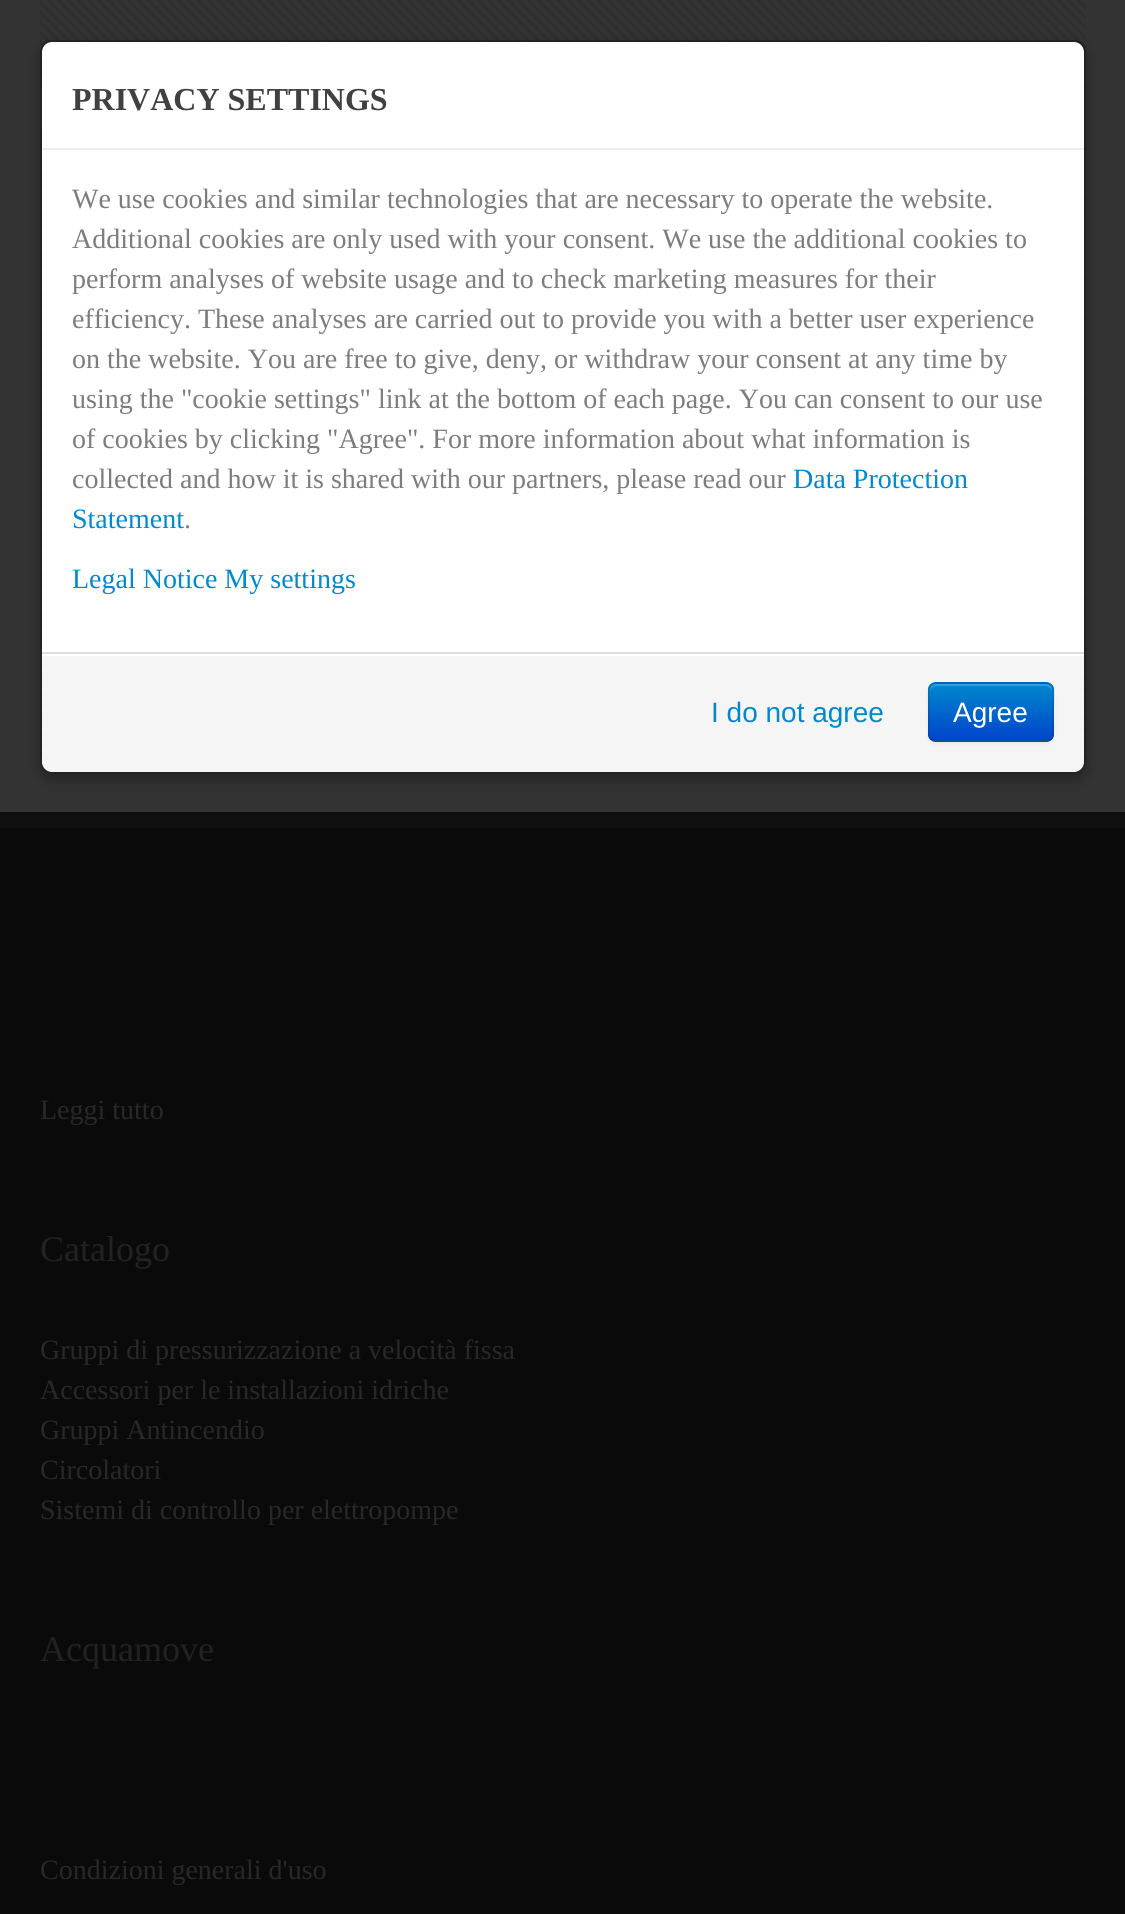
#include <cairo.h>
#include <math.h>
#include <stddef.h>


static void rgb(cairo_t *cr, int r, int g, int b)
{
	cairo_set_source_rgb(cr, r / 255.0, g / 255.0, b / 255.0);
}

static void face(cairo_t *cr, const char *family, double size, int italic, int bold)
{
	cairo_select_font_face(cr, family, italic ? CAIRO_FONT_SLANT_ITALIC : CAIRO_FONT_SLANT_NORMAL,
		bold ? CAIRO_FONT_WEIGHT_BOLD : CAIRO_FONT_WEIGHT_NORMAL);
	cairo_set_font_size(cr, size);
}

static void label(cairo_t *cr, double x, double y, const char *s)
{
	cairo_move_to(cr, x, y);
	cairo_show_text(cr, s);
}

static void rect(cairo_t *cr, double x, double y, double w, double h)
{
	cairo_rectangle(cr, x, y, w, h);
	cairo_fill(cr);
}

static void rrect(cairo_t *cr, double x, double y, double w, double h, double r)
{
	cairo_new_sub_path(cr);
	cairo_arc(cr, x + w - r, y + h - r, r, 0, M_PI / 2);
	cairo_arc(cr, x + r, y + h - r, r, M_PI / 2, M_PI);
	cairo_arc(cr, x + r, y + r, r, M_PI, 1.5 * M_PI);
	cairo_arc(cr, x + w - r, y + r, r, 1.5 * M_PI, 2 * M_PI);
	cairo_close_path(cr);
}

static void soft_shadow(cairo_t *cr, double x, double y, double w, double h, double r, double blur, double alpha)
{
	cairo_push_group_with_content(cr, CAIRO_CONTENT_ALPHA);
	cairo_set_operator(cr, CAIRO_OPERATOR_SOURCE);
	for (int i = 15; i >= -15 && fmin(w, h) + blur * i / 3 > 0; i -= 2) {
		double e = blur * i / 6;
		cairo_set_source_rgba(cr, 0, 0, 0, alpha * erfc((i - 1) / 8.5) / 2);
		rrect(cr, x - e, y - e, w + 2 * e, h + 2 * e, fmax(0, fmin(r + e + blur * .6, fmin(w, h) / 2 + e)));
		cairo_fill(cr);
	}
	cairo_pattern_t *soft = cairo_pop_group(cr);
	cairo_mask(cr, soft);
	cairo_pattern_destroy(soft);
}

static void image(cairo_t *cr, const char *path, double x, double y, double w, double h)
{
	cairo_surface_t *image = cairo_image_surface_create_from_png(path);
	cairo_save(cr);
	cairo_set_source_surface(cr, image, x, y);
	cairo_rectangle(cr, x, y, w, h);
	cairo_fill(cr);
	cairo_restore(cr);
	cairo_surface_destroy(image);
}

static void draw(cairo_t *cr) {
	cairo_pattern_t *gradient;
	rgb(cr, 51, 51, 51);
	cairo_paint(cr);
	image(cr, "image0.png", 40, 0, 1046, 88);
	image(cr, "image1.png", 40, 132, 1046, 630);
	cairo_save(cr);
	cairo_set_fill_rule(cr, CAIRO_FILL_RULE_EVEN_ODD);
	cairo_new_path(cr);
	cairo_move_to(cr, 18, 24);
	cairo_line_to(cr, 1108, 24);
	cairo_line_to(cr, 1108, 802);
	cairo_line_to(cr, 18, 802);
	cairo_close_path(cr);
	cairo_move_to(cr, 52, 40);
	cairo_line_to(cr, 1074, 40);
	cairo_curve_to(cr, 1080.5, 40, 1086, 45.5, 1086, 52);
	cairo_line_to(cr, 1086, 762);
	cairo_curve_to(cr, 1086, 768.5, 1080.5, 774, 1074, 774);
	cairo_line_to(cr, 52, 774);
	cairo_curve_to(cr, 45.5, 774, 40, 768.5, 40, 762);
	cairo_line_to(cr, 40, 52);
	cairo_curve_to(cr, 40, 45.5, 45.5, 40, 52, 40);
	cairo_close_path(cr);
	cairo_clip(cr);
	rgb(cr, 0, 0, 0);
	soft_shadow(cr, 40, 46, 1046, 734, 12, 7, 0.3);
	cairo_restore(cr);
	rgb(cr, 255, 255, 255);
	rrect(cr, 42, 42, 1042, 730, 10);
	cairo_fill(cr);
	rrect(cr, 41, 41, 1044, 732, 11);
	cairo_set_source_rgba(cr, 0, 0, 0, 0.3);
	cairo_stroke(cr);
	rgb(cr, 238, 238, 238);
	rect(cr, 42, 148, 1042, 2);
	face(cr, "Liberation Serif", 32, 0, 1);
	rgb(cr, 64, 64, 64);
	label(cr, 72, 110, "PRIVACY SETTINGS");
	face(cr, "Liberation Serif", 28, 0, 0);
	rgb(cr, 125, 125, 125);
	label(cr, 72, 208, "We use cookies and similar technologies that are necessary to operate the website.");
	label(cr, 72, 248, "Additional cookies are only used with your consent. We use the additional cookies to");
	label(cr, 72, 288, "perform analyses of website usage and to check marketing measures for their");
	label(cr, 72, 328, "efficiency. These analyses are carried out to provide you with a better user experience");
	label(cr, 72, 368, "on the website. You are free to give, deny, or withdraw your consent at any time by");
	label(cr, 72, 408, "using the \"cookie settings\" link at the bottom of each page. You can consent to our use");
	label(cr, 72, 448, "of cookies by clicking \"Agree\". For more information about what information is");
	label(cr, 72, 488, "collected and how it is shared with our partners, please read our");
	rgb(cr, 0, 136, 204);
	label(cr, 793, 488, "Data Protection");
	label(cr, 72, 528, "Statement");
	rgb(cr, 125, 125, 125);
	label(cr, 184, 528, ".");
	rgb(cr, 0, 136, 204);
	label(cr, 72, 588, "Legal Notice My settings");
	rgb(cr, 245, 245, 245);
	cairo_new_path(cr);
	cairo_move_to(cr, 42, 652);
	cairo_line_to(cr, 1084, 652);
	cairo_line_to(cr, 1084, 760);
	cairo_curve_to(cr, 1084, 766.5, 1078.5, 772, 1072, 772);
	cairo_line_to(cr, 54, 772);
	cairo_curve_to(cr, 47.5, 772, 42, 766.5, 42, 760);
	cairo_close_path(cr);
	cairo_fill(cr);
	rgb(cr, 255, 255, 255);
	rect(cr, 42, 654, 1042, 2);
	rgb(cr, 221, 221, 221);
	rect(cr, 42, 652, 1042, 2);
	face(cr, "Liberation Sans", 28, 0, 0);
	rgb(cr, 0, 136, 204);
	label(cr, 711, 722, "I do not agree");
	rgb(cr, 0, 0, 0);
	soft_shadow(cr, 928, 684, 126, 60, 8, 2, 0.05);
	rgb(cr, 0, 109, 204);
	rrect(cr, 928, 682, 126, 60, 8);
	cairo_fill(cr);
	cairo_save(cr);
	rrect(cr, 928, 682, 126, 60, 8);
	cairo_clip(cr);
	gradient = cairo_pattern_create_linear(991, 684, 991, 740);
	cairo_pattern_add_color_stop_rgba(gradient, 0, 0, 0.533, 0.8, 1);
	cairo_pattern_add_color_stop_rgba(gradient, 1, 0, 0.267, 0.8, 1);
	cairo_set_source(cr, gradient);
	cairo_pattern_destroy(gradient);
	rect(cr, 928, 684, 126, 56);
	cairo_restore(cr);
	cairo_set_source_rgba(cr, 1, 1, 1, 0.2);
	cairo_new_path(cr);
	cairo_move_to(cr, 936, 686);
	cairo_line_to(cr, 1046, 686);
	cairo_curve_to(cr, 1049, 686, 1052, 689, 1052, 692);
	cairo_line_to(cr, 1052, 690);
	cairo_curve_to(cr, 1052, 687, 1049, 684, 1046, 684);
	cairo_line_to(cr, 936, 684);
	cairo_curve_to(cr, 933, 684, 930, 687, 930, 690);
	cairo_line_to(cr, 930, 692);
	cairo_curve_to(cr, 930, 689, 933, 686, 936, 686);
	cairo_close_path(cr);
	cairo_fill(cr);
	cairo_new_path(cr);
	cairo_move_to(cr, 1051, 739);
	cairo_curve_to(cr, 1049.5, 740.5, 1048, 741, 1046, 741);
	cairo_line_to(cr, 936, 741);
	cairo_curve_to(cr, 934, 741, 932.5, 740.5, 931, 739);
	cairo_set_source_rgba(cr, 0, 0, 0, 0.25);
	cairo_stroke(cr);
	cairo_new_path(cr);
	cairo_move_to(cr, 931, 739);
	cairo_curve_to(cr, 928, 736, 929, 730.5, 929, 726.5);
	cairo_line_to(cr, 929, 712);
	cairo_curve_to(cr, 929, 680.5, 924, 683, 954.5, 683);
	cairo_line_to(cr, 1027.5, 683);
	cairo_curve_to(cr, 1058, 683, 1053, 680.5, 1053, 712);
	cairo_line_to(cr, 1053, 726.5);
	cairo_curve_to(cr, 1053, 730.5, 1054, 736, 1051, 739);
	cairo_set_source_rgba(cr, 0, 0, 0, 0.1);
	cairo_stroke(cr);
	rgb(cr, 255, 255, 255);
	label(cr, 953, 722, "Agree");
	rgb(cr, 10, 10, 10);
	rect(cr, 0, 828, 1125, 1086);
	rgb(cr, 15, 15, 15);
	rect(cr, 0, 812, 1125, 16);
	face(cr, "Liberation Serif", 28, 0, 0);
	rgb(cr, 40, 40, 40);
	label(cr, 40, 1119, "Leggi tutto");
	face(cr, "Liberation Serif", 36, 0, 0);
	rgb(cr, 34, 34, 34);
	label(cr, 40, 1261, "Catalogo");
	face(cr, "Liberation Serif", 28, 0, 0);
	rgb(cr, 40, 40, 40);
	label(cr, 40, 1359, "Gruppi di pressurizzazione a velocità fissa");
	label(cr, 40, 1399, "Accessori per le installazioni idriche");
	label(cr, 40, 1439, "Gruppi Antincendio");
	label(cr, 40, 1479, "Circolatori");
	label(cr, 40, 1519, "Sistemi di controllo per elettropompe");
	face(cr, "Liberation Serif", 36, 0, 0);
	rgb(cr, 34, 34, 34);
	label(cr, 40, 1661, "Acquamove");
	face(cr, "Liberation Serif", 28, 0, 0);
	rgb(cr, 40, 40, 40);
	label(cr, 40, 1879, "Condizioni generali d'uso");
}

int main(void) {
	cairo_surface_t *surface = cairo_image_surface_create(CAIRO_FORMAT_RGB24, 1125, 1914);
	cairo_t *cr = cairo_create(surface);
	cairo_font_options_t *options = cairo_font_options_create();
	cairo_font_options_set_hint_metrics(options, CAIRO_HINT_METRICS_OFF);
	cairo_font_options_set_hint_style(options, CAIRO_HINT_STYLE_NONE);
	cairo_set_font_options(cr, options);
	cairo_set_miter_limit(cr, 4);
	draw(cr);
	cairo_surface_write_to_png(surface, "render.png");
	cairo_font_options_destroy(options);
	cairo_destroy(cr);
	cairo_surface_destroy(surface);
	return 0;
}
